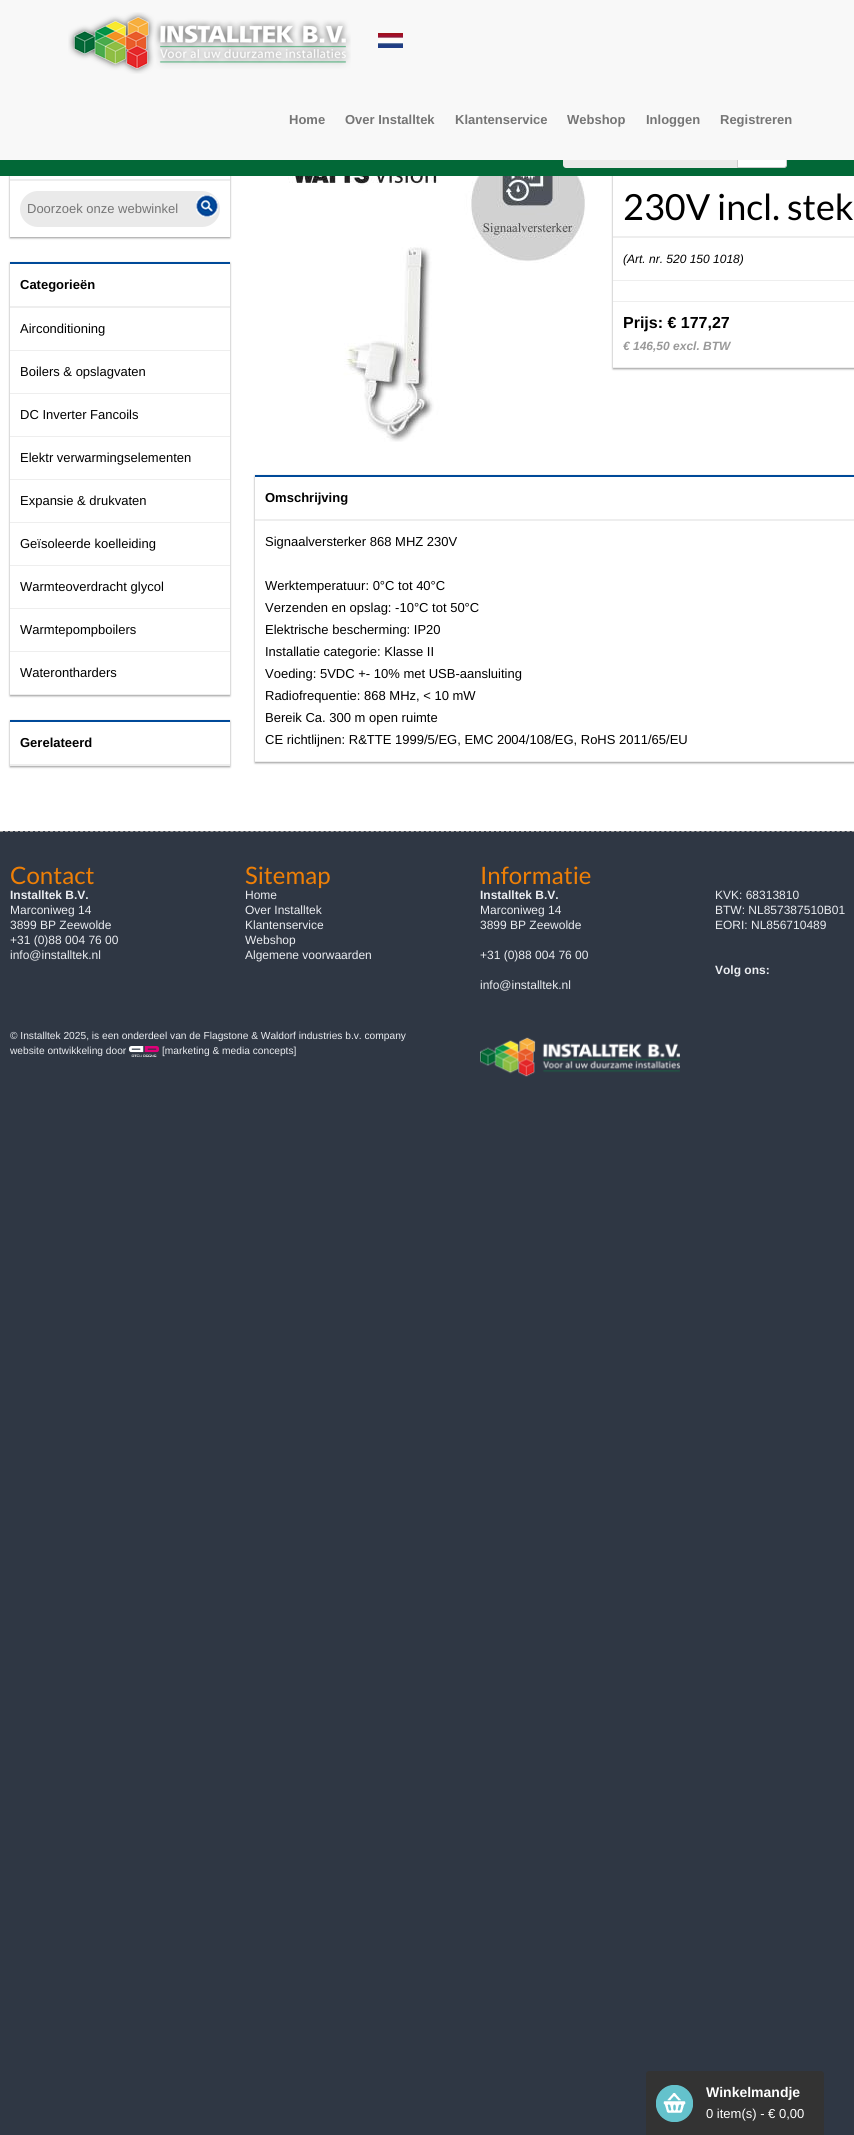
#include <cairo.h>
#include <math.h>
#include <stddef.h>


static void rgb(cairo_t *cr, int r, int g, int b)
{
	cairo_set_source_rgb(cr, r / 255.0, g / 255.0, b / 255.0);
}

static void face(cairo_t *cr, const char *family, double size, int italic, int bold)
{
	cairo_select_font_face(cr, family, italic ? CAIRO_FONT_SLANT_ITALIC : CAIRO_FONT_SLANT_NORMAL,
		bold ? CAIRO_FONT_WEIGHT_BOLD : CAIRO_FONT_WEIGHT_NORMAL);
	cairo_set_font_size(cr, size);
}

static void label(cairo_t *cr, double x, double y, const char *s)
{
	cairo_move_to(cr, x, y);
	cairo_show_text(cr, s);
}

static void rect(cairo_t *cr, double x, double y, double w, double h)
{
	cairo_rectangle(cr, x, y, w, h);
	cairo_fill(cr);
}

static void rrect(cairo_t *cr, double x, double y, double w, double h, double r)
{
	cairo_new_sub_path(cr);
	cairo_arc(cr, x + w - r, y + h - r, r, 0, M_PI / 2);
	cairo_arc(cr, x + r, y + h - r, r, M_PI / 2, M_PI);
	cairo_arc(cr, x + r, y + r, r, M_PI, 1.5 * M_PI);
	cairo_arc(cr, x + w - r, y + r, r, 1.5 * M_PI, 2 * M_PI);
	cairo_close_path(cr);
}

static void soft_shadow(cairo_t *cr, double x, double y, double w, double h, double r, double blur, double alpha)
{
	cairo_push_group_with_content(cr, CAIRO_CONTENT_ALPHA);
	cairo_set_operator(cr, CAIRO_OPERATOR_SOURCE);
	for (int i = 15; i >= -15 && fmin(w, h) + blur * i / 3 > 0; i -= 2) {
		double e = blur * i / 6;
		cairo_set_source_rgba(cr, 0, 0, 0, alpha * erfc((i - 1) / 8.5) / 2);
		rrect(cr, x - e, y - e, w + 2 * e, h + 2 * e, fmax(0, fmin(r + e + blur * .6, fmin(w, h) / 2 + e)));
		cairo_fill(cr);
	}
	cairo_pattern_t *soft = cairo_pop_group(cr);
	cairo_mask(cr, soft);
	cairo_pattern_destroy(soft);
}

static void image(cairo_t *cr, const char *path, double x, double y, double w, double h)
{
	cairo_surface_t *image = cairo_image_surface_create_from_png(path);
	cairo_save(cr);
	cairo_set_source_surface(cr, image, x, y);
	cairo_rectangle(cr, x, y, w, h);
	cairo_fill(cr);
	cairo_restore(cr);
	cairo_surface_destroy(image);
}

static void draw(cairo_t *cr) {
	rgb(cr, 47, 55, 68);
	cairo_paint(cr);
	rgb(cr, 255, 255, 255);
	rect(cr, 0, 176, 854, 655);
	cairo_save(cr);
	cairo_set_fill_rule(cr, CAIRO_FILL_RULE_EVEN_ODD);
	cairo_new_path(cr);
	cairo_move_to(cr, 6, 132);
	cairo_line_to(cr, 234, 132);
	cairo_line_to(cr, 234, 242);
	cairo_line_to(cr, 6, 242);
	cairo_close_path(cr);
	cairo_move_to(cr, 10, 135);
	cairo_line_to(cr, 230, 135);
	cairo_line_to(cr, 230, 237);
	cairo_line_to(cr, 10, 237);
	cairo_close_path(cr);
	cairo_clip(cr);
	rgb(cr, 0, 0, 0);
	soft_shadow(cr, 10, 136, 220, 102, 0, 1, 0.4);
	cairo_restore(cr);
	cairo_save(cr);
	cairo_set_fill_rule(cr, CAIRO_FILL_RULE_EVEN_ODD);
	cairo_new_path(cr);
	cairo_move_to(cr, 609, 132);
	cairo_line_to(cr, 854, 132);
	cairo_line_to(cr, 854, 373);
	cairo_line_to(cr, 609, 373);
	cairo_close_path(cr);
	cairo_move_to(cr, 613, 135);
	cairo_line_to(cr, 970, 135);
	cairo_line_to(cr, 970, 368);
	cairo_line_to(cr, 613, 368);
	cairo_close_path(cr);
	cairo_clip(cr);
	rgb(cr, 0, 0, 0);
	soft_shadow(cr, 613, 136, 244, 233, 0, 1, 0.4);
	cairo_restore(cr);
	rgb(cr, 2, 104, 55);
	rect(cr, 0, 160, 854, 16);
	rgb(cr, 234, 234, 234);
	cairo_new_path(cr);
	cairo_move_to(cr, 566, 138);
	cairo_line_to(cr, 738, 138);
	cairo_line_to(cr, 738, 168);
	cairo_line_to(cr, 566, 168);
	cairo_curve_to(cr, 564.5, 168, 563, 166.5, 563, 165);
	cairo_line_to(cr, 563, 141);
	cairo_curve_to(cr, 563, 139.5, 564.5, 138, 566, 138);
	cairo_close_path(cr);
	cairo_fill(cr);
	rgb(cr, 255, 255, 255);
	cairo_new_path(cr);
	cairo_move_to(cr, 737.5, 138.5);
	cairo_line_to(cr, 784, 138.5);
	cairo_curve_to(cr, 785.5, 138.5, 786.5, 139.5, 786.5, 141);
	cairo_line_to(cr, 786.5, 165);
	cairo_curve_to(cr, 786.5, 166.5, 785.5, 167.5, 784, 167.5);
	cairo_line_to(cr, 737.5, 167.5);
	cairo_close_path(cr);
	cairo_fill_preserve(cr);
	rgb(cr, 204, 204, 204);
	cairo_set_line_width(cr, 1);
	cairo_stroke(cr);
	rgb(cr, 248, 248, 248);
	rect(cr, 0, 0, 854, 160);
	image(cr, "image0.png", 68, 12, 283, 62);
	image(cr, "image1.png", 378, 33, 25, 15);
	face(cr, "Liberation Sans", 13, 0, 1);
	rgb(cr, 117, 117, 117);
	label(cr, 289, 124, "Home");
	label(cr, 345, 124, "Over Installtek");
	label(cr, 455, 124, "Klantenservice");
	label(cr, 567, 124, "Webshop");
	label(cr, 646, 124, "Inloggen");
	label(cr, 720, 124, "Registreren");
	rgb(cr, 238, 238, 238);
	rect(cr, 10, 179, 220, 2);
	rgb(cr, 234, 234, 234);
	rrect(cr, 20, 191, 200, 36, 18);
	cairo_fill(cr);
	face(cr, "Liberation Sans", 13, 0, 0);
	rgb(cr, 117, 117, 117);
	label(cr, 27, 213, "Doorzoek onze webwinkel");
	image(cr, "image2.png", 196, 195, 22, 22);
	cairo_save(cr);
	cairo_set_fill_rule(cr, CAIRO_FILL_RULE_EVEN_ODD);
	cairo_new_path(cr);
	cairo_move_to(cr, 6, 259);
	cairo_line_to(cr, 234, 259);
	cairo_line_to(cr, 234, 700);
	cairo_line_to(cr, 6, 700);
	cairo_close_path(cr);
	cairo_move_to(cr, 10, 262);
	cairo_line_to(cr, 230, 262);
	cairo_line_to(cr, 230, 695);
	cairo_line_to(cr, 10, 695);
	cairo_close_path(cr);
	cairo_clip(cr);
	rgb(cr, 0, 0, 0);
	soft_shadow(cr, 10, 263, 220, 433, 0, 1, 0.4);
	cairo_restore(cr);
	rgb(cr, 0, 74, 153);
	rect(cr, 10, 262, 220, 2);
	rgb(cr, 238, 238, 238);
	rect(cr, 10, 306, 220, 2);
	face(cr, "Liberation Sans", 13, 0, 1);
	rgb(cr, 0, 0, 0);
	label(cr, 20, 289, "Categorieën");
	rgb(cr, 238, 238, 238);
	rect(cr, 10, 350, 220, 1);
	face(cr, "Liberation Sans", 13, 0, 0);
	rgb(cr, 0, 0, 0);
	label(cr, 20, 333, "Airconditioning");
	rgb(cr, 238, 238, 238);
	rect(cr, 10, 393, 220, 1);
	rgb(cr, 0, 0, 0);
	label(cr, 20, 376, "Boilers & opslagvaten");
	rgb(cr, 238, 238, 238);
	rect(cr, 10, 436, 220, 1);
	rgb(cr, 0, 0, 0);
	label(cr, 20, 419, "DC Inverter Fancoils");
	rgb(cr, 238, 238, 238);
	rect(cr, 10, 479, 220, 1);
	rgb(cr, 0, 0, 0);
	label(cr, 20, 462, "Elektr verwarmingselementen");
	rgb(cr, 238, 238, 238);
	rect(cr, 10, 522, 220, 1);
	rgb(cr, 0, 0, 0);
	label(cr, 20, 505, "Expansie & drukvaten");
	rgb(cr, 238, 238, 238);
	rect(cr, 10, 565, 220, 1);
	rgb(cr, 0, 0, 0);
	label(cr, 20, 548, "Geïsoleerde koelleiding");
	rgb(cr, 238, 238, 238);
	rect(cr, 10, 608, 220, 1);
	rgb(cr, 0, 0, 0);
	label(cr, 20, 591, "Warmteoverdracht glycol");
	rgb(cr, 238, 238, 238);
	rect(cr, 10, 651, 220, 1);
	rgb(cr, 0, 0, 0);
	label(cr, 20, 634, "Warmtepompboilers");
	rgb(cr, 238, 238, 238);
	rect(cr, 10, 694, 220, 1);
	rgb(cr, 0, 0, 0);
	label(cr, 20, 677, "Waterontharders");
	cairo_save(cr);
	cairo_set_fill_rule(cr, CAIRO_FILL_RULE_EVEN_ODD);
	cairo_new_path(cr);
	cairo_move_to(cr, 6, 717);
	cairo_line_to(cr, 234, 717);
	cairo_line_to(cr, 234, 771);
	cairo_line_to(cr, 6, 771);
	cairo_close_path(cr);
	cairo_move_to(cr, 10, 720);
	cairo_line_to(cr, 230, 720);
	cairo_line_to(cr, 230, 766);
	cairo_line_to(cr, 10, 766);
	cairo_close_path(cr);
	cairo_clip(cr);
	rgb(cr, 0, 0, 0);
	soft_shadow(cr, 10, 721, 220, 46, 0, 1, 0.4);
	cairo_restore(cr);
	rgb(cr, 0, 74, 153);
	rect(cr, 10, 720, 220, 2);
	rgb(cr, 238, 238, 238);
	rect(cr, 10, 764, 220, 2);
	face(cr, "Liberation Sans", 13, 0, 1);
	rgb(cr, 0, 0, 0);
	label(cr, 20, 747, "Gerelateerd");
	image(cr, "image3.png", 288, 176, 298, 266);
	rgb(cr, 238, 238, 238);
	rect(cr, 613, 236, 241, 2);
	face(cr, "Lato", 36, 0, 0);
	rgb(cr, 0, 0, 0);
	label(cr, 623, 220, "230V incl. stek");
	rgb(cr, 238, 238, 238);
	rect(cr, 613, 280, 241, 1);
	face(cr, "Liberation Sans", 12, 1, 0);
	rgb(cr, 0, 0, 0);
	label(cr, 623, 263, "(Art. nr. 520 150 1018)");
	rgb(cr, 238, 238, 238);
	rect(cr, 613, 301, 241, 1);
	rect(cr, 613, 367, 241, 1);
	face(cr, "Liberation Sans", 16, 0, 1);
	rgb(cr, 0, 0, 0);
	label(cr, 623, 328, "Prijs: € 177,27");
	face(cr, "Liberation Sans", 12, 1, 1);
	rgb(cr, 153, 153, 153);
	label(cr, 623, 350, "€ 146,50 excl. BTW");
	cairo_save(cr);
	cairo_set_fill_rule(cr, CAIRO_FILL_RULE_EVEN_ODD);
	cairo_new_path(cr);
	cairo_move_to(cr, 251, 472);
	cairo_line_to(cr, 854, 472);
	cairo_line_to(cr, 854, 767);
	cairo_line_to(cr, 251, 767);
	cairo_close_path(cr);
	cairo_move_to(cr, 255, 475);
	cairo_line_to(cr, 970, 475);
	cairo_line_to(cr, 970, 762);
	cairo_line_to(cr, 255, 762);
	cairo_close_path(cr);
	cairo_clip(cr);
	rgb(cr, 0, 0, 0);
	soft_shadow(cr, 255, 476, 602, 287, 0, 1, 0.4);
	cairo_restore(cr);
	rgb(cr, 0, 74, 153);
	rect(cr, 255, 475, 599, 2);
	rgb(cr, 238, 238, 238);
	rect(cr, 255, 519, 599, 2);
	face(cr, "Liberation Sans", 13, 0, 1);
	rgb(cr, 0, 0, 0);
	label(cr, 265, 502, "Omschrijving");
	rgb(cr, 238, 238, 238);
	rect(cr, 255, 761, 599, 1);
	face(cr, "Liberation Sans", 13, 0, 0);
	rgb(cr, 0, 0, 0);
	label(cr, 265, 546, "Signaalversterker 868 MHZ 230V");
	label(cr, 265, 590, "Werktemperatuur: 0°C tot 40°C");
	label(cr, 265, 612, "Verzenden en opslag: -10°C tot 50°C");
	label(cr, 265, 634, "Elektrische bescherming: IP20");
	label(cr, 265, 656, "Installatie categorie: Klasse II");
	label(cr, 265, 678, "Voeding: 5VDC +- 10% met USB-aansluiting");
	label(cr, 265, 700, "Radiofrequentie: 868 MHz, < 10 mW");
	label(cr, 265, 722, "Bereik Ca. 300 m open ruimte");
	label(cr, 265, 744, "CE richtlijnen: R&TTE 1999/5/EG, EMC 2004/108/EG, RoHS 2011/65/EU");
	cairo_new_path(cr);
	cairo_move_to(cr, 0, 831.5);
	cairo_line_to(cr, 854, 831.5);
	rgb(cr, 153, 153, 153);
	cairo_set_dash(cr, (double[]){3, 2.01}, 2, 0);
	cairo_stroke(cr);
	face(cr, "Lato", 24, 0, 0);
	rgb(cr, 238, 127, 6);
	label(cr, 10, 884, "Contact");
	face(cr, "Liberation Sans", 12, 0, 1);
	rgb(cr, 235, 237, 241);
	label(cr, 10, 899, "Installtek B.V.");
	face(cr, "Liberation Sans", 12, 0, 0);
	label(cr, 10, 914, "Marconiweg 14");
	label(cr, 10, 929, "3899 BP Zeewolde");
	label(cr, 10, 944, "+31 (0)88 004 76 00");
	label(cr, 10, 959, "info@installtek.nl");
	face(cr, "Lato", 24, 0, 0);
	rgb(cr, 238, 127, 6);
	label(cr, 245, 884, "Sitemap");
	face(cr, "Liberation Sans", 12, 0, 0);
	rgb(cr, 235, 237, 241);
	label(cr, 245, 899, "Home");
	label(cr, 245, 914, "Over Installtek");
	label(cr, 245, 929, "Klantenservice");
	label(cr, 245, 944, "Webshop");
	label(cr, 245, 959, "Algemene voorwaarden");
	face(cr, "Lato", 24, 0, 0);
	rgb(cr, 238, 127, 6);
	label(cr, 480, 884, "Informatie");
	face(cr, "Liberation Sans", 12, 0, 1);
	rgb(cr, 235, 237, 241);
	label(cr, 480, 899, "Installtek B.V.");
	face(cr, "Liberation Sans", 12, 0, 0);
	label(cr, 480, 914, "Marconiweg 14");
	label(cr, 480, 929, "3899 BP Zeewolde");
	label(cr, 480, 959, "+31 (0)88 004 76 00");
	label(cr, 480, 989, "info@installtek.nl");
	label(cr, 715, 899, "KVK: 68313810");
	label(cr, 715, 914, "BTW: NL857387510B01");
	label(cr, 715, 929, "EORI: NL856710489");
	face(cr, "Liberation Sans", 12, 0, 1);
	label(cr, 715, 974, "Volg ons:");
	face(cr, "Liberation Sans", 10.2, 0, 0);
	label(cr, 10, 1039, "© Installtek 2025, is een onderdeel van de Flagstone & Waldorf industries b.v. company");
	label(cr, 10, 1054, "website ontwikkeling door");
	image(cr, "image4.png", 129, 1046, 30, 11);
	label(cr, 162, 1054, "[marketing & media concepts]");
	image(cr, "image5.png", 480, 1037, 200, 40);
	rgb(cr, 51, 51, 51);
	cairo_new_path(cr);
	cairo_move_to(cr, 649, 2071);
	cairo_line_to(cr, 821, 2071);
	cairo_curve_to(cr, 822.5, 2071, 824, 2072.5, 824, 2074);
	cairo_line_to(cr, 824, 2135);
	cairo_line_to(cr, 646, 2135);
	cairo_line_to(cr, 646, 2074);
	cairo_curve_to(cr, 646, 2072.5, 647.5, 2071, 649, 2071);
	cairo_close_path(cr);
	cairo_fill(cr);
	image(cr, "image6.png", 656, 2085, 37, 37);
	face(cr, "Liberation Sans", 14, 0, 1);
	rgb(cr, 255, 255, 255);
	label(cr, 706, 2097, "Winkelmandje");
	face(cr, "Liberation Sans", 13, 0, 0);
	label(cr, 706, 2118, "0 item(s) - € 0,00");
}

int main(void) {
	cairo_surface_t *surface = cairo_image_surface_create(CAIRO_FORMAT_RGB24, 854, 2135);
	cairo_t *cr = cairo_create(surface);
	cairo_font_options_t *options = cairo_font_options_create();
	cairo_font_options_set_hint_metrics(options, CAIRO_HINT_METRICS_OFF);
	cairo_font_options_set_hint_style(options, CAIRO_HINT_STYLE_NONE);
	cairo_set_font_options(cr, options);
	cairo_set_miter_limit(cr, 4);
	draw(cr);
	cairo_surface_write_to_png(surface, "render.png");
	cairo_font_options_destroy(options);
	cairo_destroy(cr);
	cairo_surface_destroy(surface);
	return 0;
}
